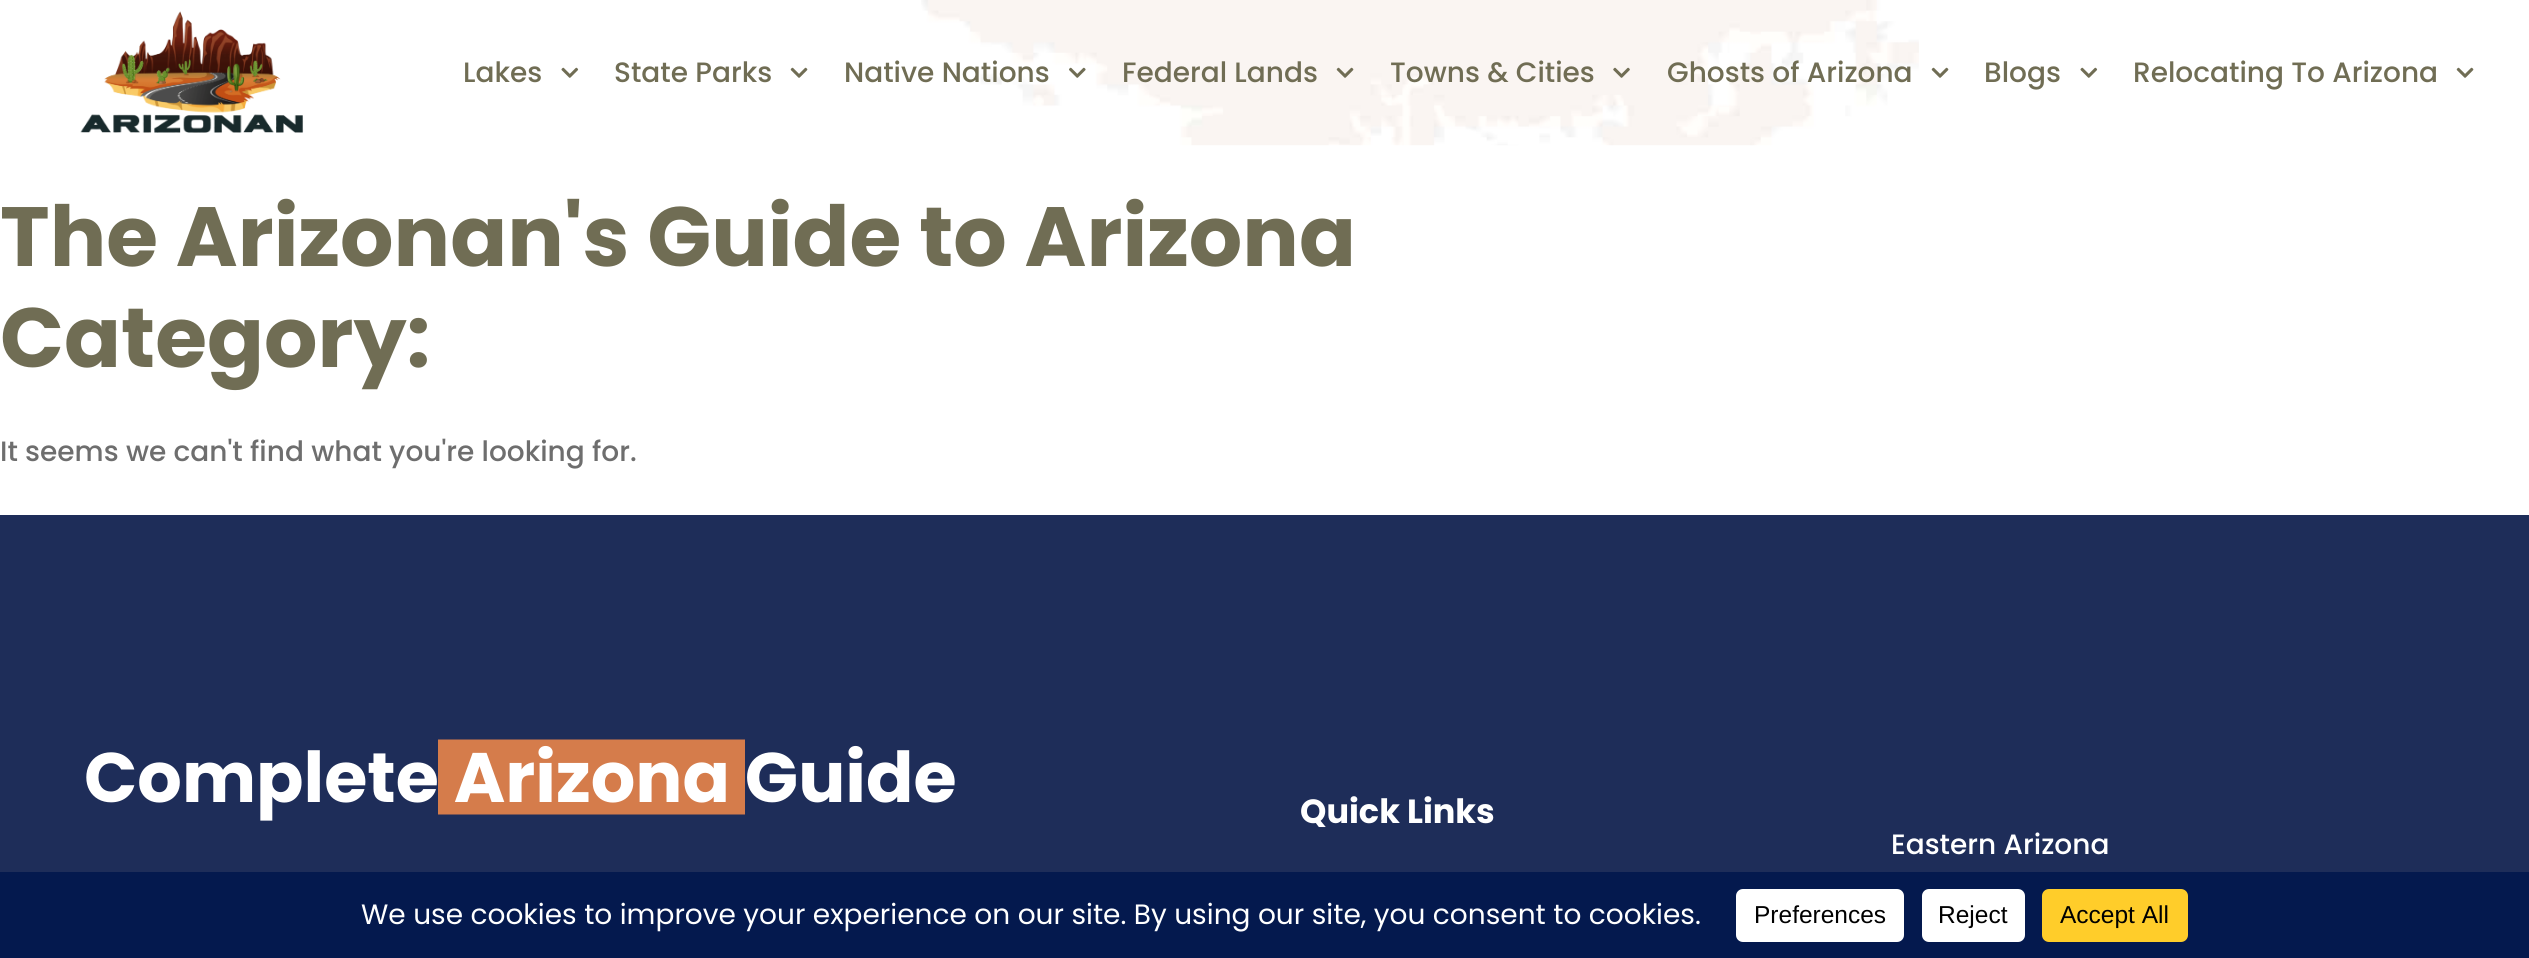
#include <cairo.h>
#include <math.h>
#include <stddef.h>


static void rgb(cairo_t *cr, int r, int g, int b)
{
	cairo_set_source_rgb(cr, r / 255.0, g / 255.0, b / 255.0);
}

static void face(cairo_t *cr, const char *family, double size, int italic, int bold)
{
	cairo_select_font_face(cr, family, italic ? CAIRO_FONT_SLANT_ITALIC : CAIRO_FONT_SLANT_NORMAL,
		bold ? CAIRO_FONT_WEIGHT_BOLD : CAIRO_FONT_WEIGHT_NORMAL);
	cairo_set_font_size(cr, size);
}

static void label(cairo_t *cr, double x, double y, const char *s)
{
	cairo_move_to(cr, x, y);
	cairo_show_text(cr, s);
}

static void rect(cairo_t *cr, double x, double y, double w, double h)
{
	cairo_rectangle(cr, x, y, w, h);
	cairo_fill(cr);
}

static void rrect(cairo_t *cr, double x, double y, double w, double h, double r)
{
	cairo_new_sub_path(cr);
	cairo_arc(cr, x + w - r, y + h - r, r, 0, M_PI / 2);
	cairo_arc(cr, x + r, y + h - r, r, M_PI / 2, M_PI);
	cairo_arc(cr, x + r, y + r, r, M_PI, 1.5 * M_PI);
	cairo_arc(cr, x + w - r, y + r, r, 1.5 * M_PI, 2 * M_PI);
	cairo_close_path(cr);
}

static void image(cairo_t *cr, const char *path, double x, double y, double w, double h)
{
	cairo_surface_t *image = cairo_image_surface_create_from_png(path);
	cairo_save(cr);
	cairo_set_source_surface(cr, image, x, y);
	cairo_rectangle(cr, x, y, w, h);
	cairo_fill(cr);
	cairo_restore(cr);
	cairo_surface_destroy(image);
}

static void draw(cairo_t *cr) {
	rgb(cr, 255, 255, 255);
	cairo_paint(cr);
	image(cr, "image0.png", 921, 0, 998, 146);
	image(cr, "image1.png", 80, 11, 224, 122);
	face(cr, "Poppins Medium", 28, 0, 0);
	rgb(cr, 112, 109, 84);
	label(cr, 463, 82, "Lakes");
	image(cr, "image2.png", 561, 67, 18, 11);
	label(cr, 614, 82, "State Parks");
	image(cr, "image3.png", 790, 67, 18, 11);
	label(cr, 844, 82, "Native Nations");
	image(cr, "image4.png", 1069, 67, 17, 11);
	label(cr, 1122, 82, "Federal Lands");
	image(cr, "image5.png", 1336, 67, 18, 11);
	label(cr, 1390, 82, "Towns & Cities");
	image(cr, "image6.png", 1613, 67, 17, 11);
	label(cr, 1667, 82, "Ghosts of Arizona");
	image(cr, "image3.png", 1931, 67, 18, 11);
	label(cr, 1984, 82, "Blogs");
	image(cr, "image2.png", 2080, 67, 18, 11);
	label(cr, 2133, 82, "Relocating To Arizona");
	image(cr, "image3.png", 2456, 67, 18, 11);
	face(cr, "Poppins", 84, 0, 1);
	label(cr, 0, 266, "The Arizonan's Guide to Arizona");
	label(cr, 0, 367, "Category:");
	face(cr, "Poppins Medium", 28, 0, 0);
	rgb(cr, 110, 110, 110);
	label(cr, 0, 461, "It seems we can't find what you're looking for.");
	rgb(cr, 30, 45, 89);
	rect(cr, 0, 515, 2529, 357);
	cairo_new_path(cr);
	cairo_move_to(cr, 438, 777);
	cairo_line_to(cr, 745, 777);
	rgb(cr, 213, 124, 75);
	cairo_set_line_width(cr, 75);
	cairo_stroke(cr);
	face(cr, "Poppins", 70, 0, 1);
	rgb(cr, 255, 255, 255);
	label(cr, 84, 802, "Complete Arizona Guide");
	face(cr, "Poppins", 33.5, 0, 1);
	label(cr, 1300, 823, "Quick Links");
	face(cr, "Poppins Medium", 28, 0, 0);
	label(cr, 1891, 854, "Eastern Arizona");
	rgb(cr, 4, 25, 78);
	rect(cr, 0, 872, 2529, 86);
	face(cr, "Poppins", 28, 0, 0);
	rgb(cr, 255, 255, 255);
	label(cr, 361, 924, "We use cookies to improve your experience on our site. By using our site, you consent to cookies.");
	rrect(cr, 1736, 889, 168, 53, 7);
	cairo_fill(cr);
	face(cr, "Liberation Sans", 24.5, 0, 0);
	rgb(cr, 0, 0, 0);
	label(cr, 1754, 923, "Preferences");
	rgb(cr, 255, 255, 255);
	rrect(cr, 1922, 889, 103, 53, 7);
	cairo_fill(cr);
	rgb(cr, 0, 0, 0);
	label(cr, 1938, 923, "Reject");
	rgb(cr, 255, 205, 42);
	rrect(cr, 2042, 889, 146, 53, 7);
	cairo_fill(cr);
	rgb(cr, 0, 0, 0);
	label(cr, 2060, 923, "Accept All");
}

int main(void) {
	cairo_surface_t *surface = cairo_image_surface_create(CAIRO_FORMAT_RGB24, 2529, 958);
	cairo_t *cr = cairo_create(surface);
	cairo_font_options_t *options = cairo_font_options_create();
	cairo_font_options_set_hint_metrics(options, CAIRO_HINT_METRICS_OFF);
	cairo_font_options_set_hint_style(options, CAIRO_HINT_STYLE_NONE);
	cairo_set_font_options(cr, options);
	cairo_set_miter_limit(cr, 4);
	draw(cr);
	cairo_surface_write_to_png(surface, "render.png");
	cairo_font_options_destroy(options);
	cairo_destroy(cr);
	cairo_surface_destroy(surface);
	return 0;
}
